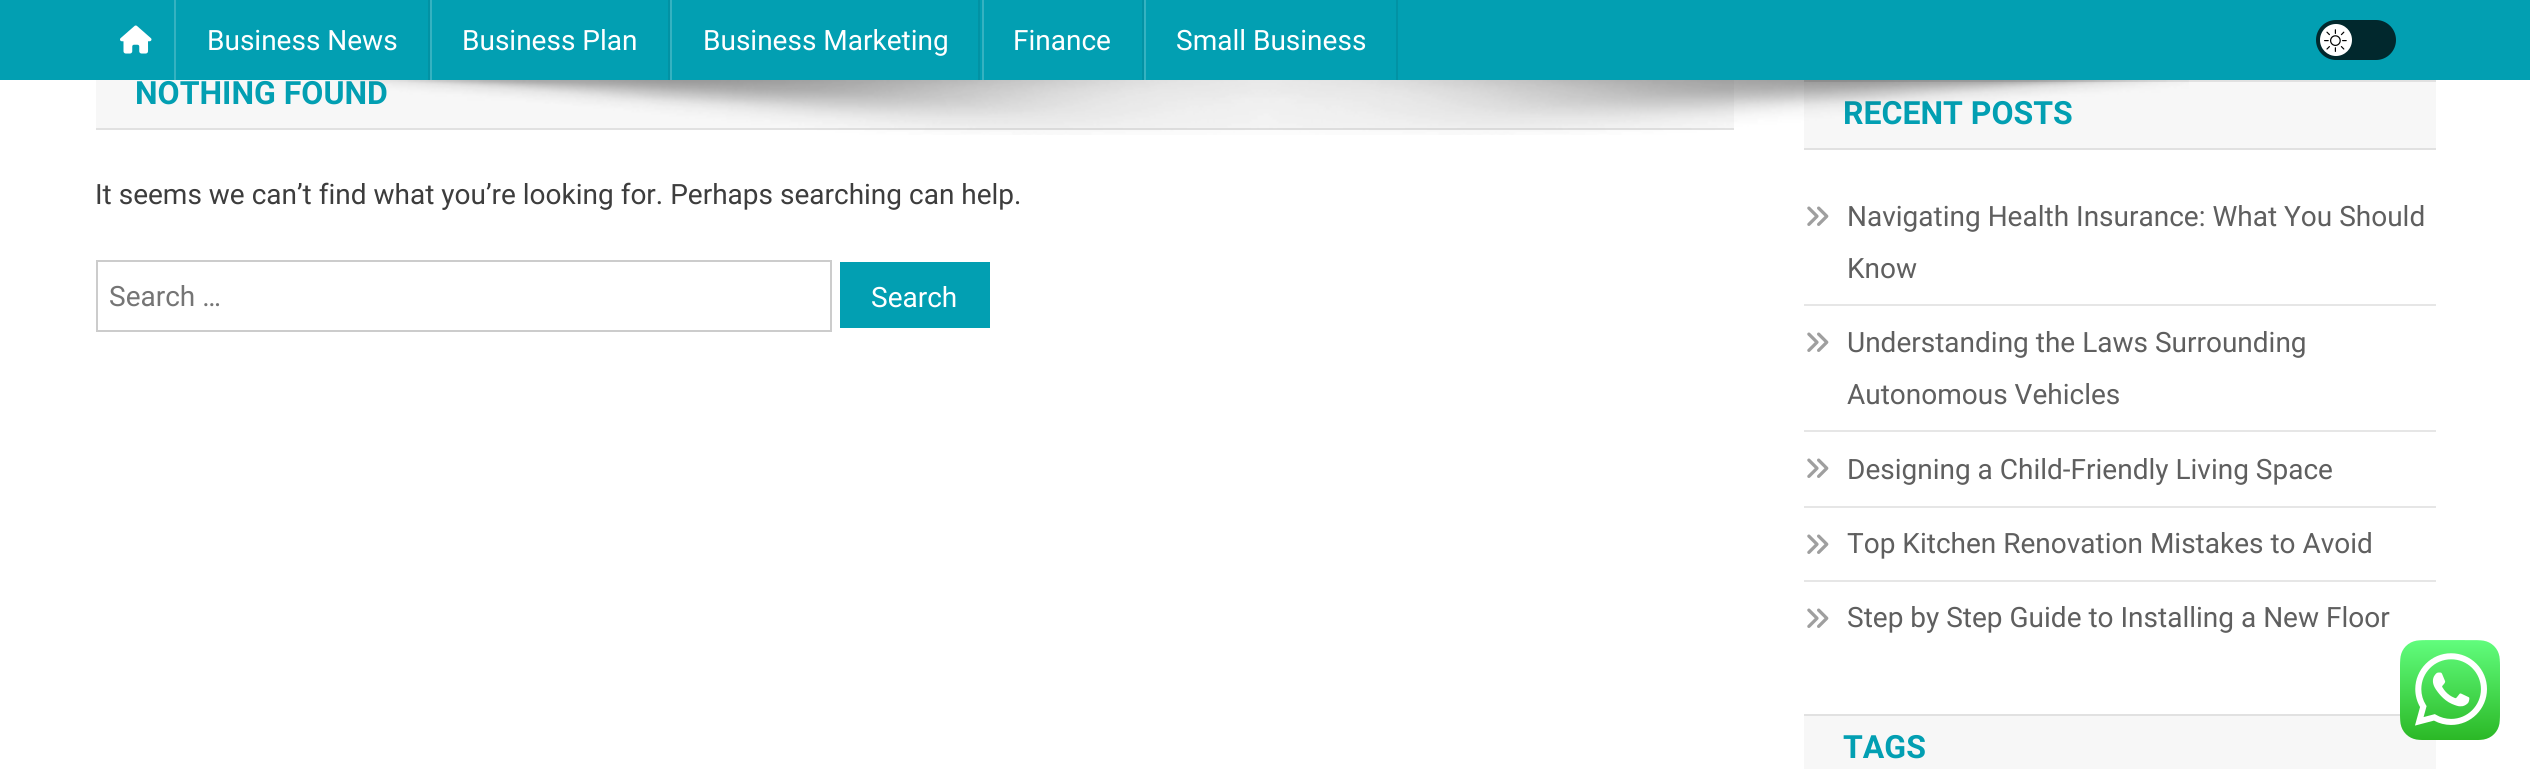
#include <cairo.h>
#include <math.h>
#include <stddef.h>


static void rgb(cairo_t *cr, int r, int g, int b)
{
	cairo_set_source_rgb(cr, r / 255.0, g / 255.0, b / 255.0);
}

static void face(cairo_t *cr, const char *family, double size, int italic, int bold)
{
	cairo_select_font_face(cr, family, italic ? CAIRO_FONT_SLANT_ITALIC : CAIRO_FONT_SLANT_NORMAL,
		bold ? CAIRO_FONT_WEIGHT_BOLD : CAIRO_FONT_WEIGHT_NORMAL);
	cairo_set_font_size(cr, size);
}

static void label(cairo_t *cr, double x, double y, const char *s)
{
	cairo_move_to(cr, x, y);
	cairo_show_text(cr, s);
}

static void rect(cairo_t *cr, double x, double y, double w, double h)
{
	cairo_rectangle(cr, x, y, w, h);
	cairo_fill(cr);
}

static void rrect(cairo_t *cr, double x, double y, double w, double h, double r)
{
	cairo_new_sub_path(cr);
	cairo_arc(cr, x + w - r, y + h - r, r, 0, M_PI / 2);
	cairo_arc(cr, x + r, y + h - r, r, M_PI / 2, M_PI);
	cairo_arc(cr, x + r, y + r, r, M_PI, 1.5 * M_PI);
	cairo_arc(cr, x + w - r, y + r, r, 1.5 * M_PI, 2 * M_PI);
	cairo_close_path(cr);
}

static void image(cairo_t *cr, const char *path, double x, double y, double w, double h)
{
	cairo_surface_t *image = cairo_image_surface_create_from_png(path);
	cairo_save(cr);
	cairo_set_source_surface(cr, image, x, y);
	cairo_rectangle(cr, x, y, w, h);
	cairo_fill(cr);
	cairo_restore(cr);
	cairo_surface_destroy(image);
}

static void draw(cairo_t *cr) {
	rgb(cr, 255, 255, 255);
	cairo_paint(cr);
	rgb(cr, 2, 159, 178);
	rect(cr, 0, 0, 2530, 80);
	image(cr, "image0.png", 120, 25, 32, 29);
	rgb(cr, 2, 146, 164);
	rect(cr, 428, 0, 2, 80);
	rgb(cr, 53, 178, 193);
	rect(cr, 174, 0, 2, 80);
	face(cr, "Roboto", 28, 0, 0);
	rgb(cr, 255, 255, 255);
	label(cr, 207, 50, "Business News");
	rgb(cr, 2, 146, 164);
	rect(cr, 668, 0, 2, 80);
	rgb(cr, 53, 178, 193);
	rect(cr, 430, 0, 2, 80);
	rgb(cr, 255, 255, 255);
	label(cr, 462, 50, "Business Plan");
	rgb(cr, 2, 146, 164);
	rect(cr, 978, 0, 2, 80);
	rgb(cr, 53, 178, 193);
	rect(cr, 670, 0, 2, 80);
	rgb(cr, 255, 255, 255);
	label(cr, 703, 50, "Business Marketing");
	rgb(cr, 2, 146, 164);
	rect(cr, 1142, 0, 2, 80);
	rgb(cr, 53, 178, 193);
	rect(cr, 982, 0, 2, 80);
	rgb(cr, 255, 255, 255);
	label(cr, 1013, 50, "Finance");
	rgb(cr, 2, 146, 164);
	rect(cr, 1396, 0, 2, 80);
	rgb(cr, 53, 178, 193);
	rect(cr, 1144, 0, 2, 80);
	rgb(cr, 255, 255, 255);
	label(cr, 1176, 50, "Small Business");
	rgb(cr, 1, 40, 45);
	rrect(cr, 2316, 20, 80, 40, 20);
	cairo_fill(cr);
	rgb(cr, 255, 255, 255);
	cairo_arc(cr, 2336, 40, 16, 0, 2 * M_PI);
	cairo_fill(cr);
	image(cr, "image1.png", 2324, 29, 23, 23);
	rgb(cr, 247, 247, 247);
	rect(cr, 96, 80, 1638, 48);
	rgb(cr, 225, 225, 225);
	rect(cr, 96, 128, 1638, 2);
	face(cr, "Roboto", 32, 0, 1);
	rgb(cr, 2, 159, 178);
	label(cr, 135, 104, "NOTHING FOUND");
	rgb(cr, 247, 247, 247);
	rect(cr, 1804, 82, 632, 66);
	rgb(cr, 225, 225, 225);
	rect(cr, 1804, 80, 632, 2);
	rgb(cr, 2, 159, 178);
	label(cr, 1843, 124, "RECENT POSTS");
	image(cr, "image2.png", 340, 80, 1849, 55);
	face(cr, "Roboto", 28, 0, 0);
	rgb(cr, 61, 61, 61);
	label(cr, 95, 204, "It seems we can’t find what you’re looking for. Perhaps searching can help.");
	cairo_rectangle(cr, 97, 261, 734, 70);
	rgb(cr, 204, 204, 204);
	cairo_stroke(cr);
	rgb(cr, 117, 117, 117);
	label(cr, 109, 306, "Search …");
	rgb(cr, 2, 159, 178);
	rect(cr, 840, 262, 150, 66);
	rgb(cr, 255, 255, 255);
	label(cr, 871, 307, "Search");
	rgb(cr, 225, 225, 225);
	rect(cr, 1804, 148, 632, 2);
	rgb(cr, 230, 230, 230);
	rect(cr, 1804, 304, 632, 2);
	image(cr, "image3.png", 1807, 206, 22, 20);
	rgb(cr, 95, 95, 95);
	label(cr, 1847, 226, "Navigating Health Insurance: What You Should");
	label(cr, 1847, 278, "Know");
	rgb(cr, 230, 230, 230);
	rect(cr, 1804, 430, 632, 2);
	image(cr, "image3.png", 1807, 332, 22, 20);
	rgb(cr, 95, 95, 95);
	label(cr, 1847, 352, "Understanding the Laws Surrounding");
	label(cr, 1847, 404, "Autonomous Vehicles");
	rgb(cr, 230, 230, 230);
	rect(cr, 1804, 506, 632, 2);
	image(cr, "image3.png", 1807, 458, 22, 20);
	rgb(cr, 95, 95, 95);
	label(cr, 1847, 479, "Designing a Child-Friendly Living Space");
	rgb(cr, 230, 230, 230);
	rect(cr, 1804, 580, 632, 2);
	image(cr, "image3.png", 1807, 534, 22, 20);
	rgb(cr, 95, 95, 95);
	label(cr, 1847, 553, "Top Kitchen Renovation Mistakes to Avoid");
	image(cr, "image3.png", 1807, 608, 22, 20);
	label(cr, 1847, 627, "Step by Step Guide to Installing a New Floor");
	rgb(cr, 247, 247, 247);
	rect(cr, 1804, 716, 632, 53);
	rgb(cr, 225, 225, 225);
	rect(cr, 1804, 714, 597, 2);
	face(cr, "Roboto", 32, 0, 1);
	rgb(cr, 2, 159, 178);
	label(cr, 1843, 758, "TAGS");
	image(cr, "image4.png", 2400, 640, 100, 100);
}

int main(void) {
	cairo_surface_t *surface = cairo_image_surface_create(CAIRO_FORMAT_RGB24, 2530, 769);
	cairo_t *cr = cairo_create(surface);
	cairo_font_options_t *options = cairo_font_options_create();
	cairo_font_options_set_hint_metrics(options, CAIRO_HINT_METRICS_OFF);
	cairo_font_options_set_hint_style(options, CAIRO_HINT_STYLE_NONE);
	cairo_set_font_options(cr, options);
	cairo_set_miter_limit(cr, 4);
	draw(cr);
	cairo_surface_write_to_png(surface, "render.png");
	cairo_font_options_destroy(options);
	cairo_destroy(cr);
	cairo_surface_destroy(surface);
	return 0;
}
